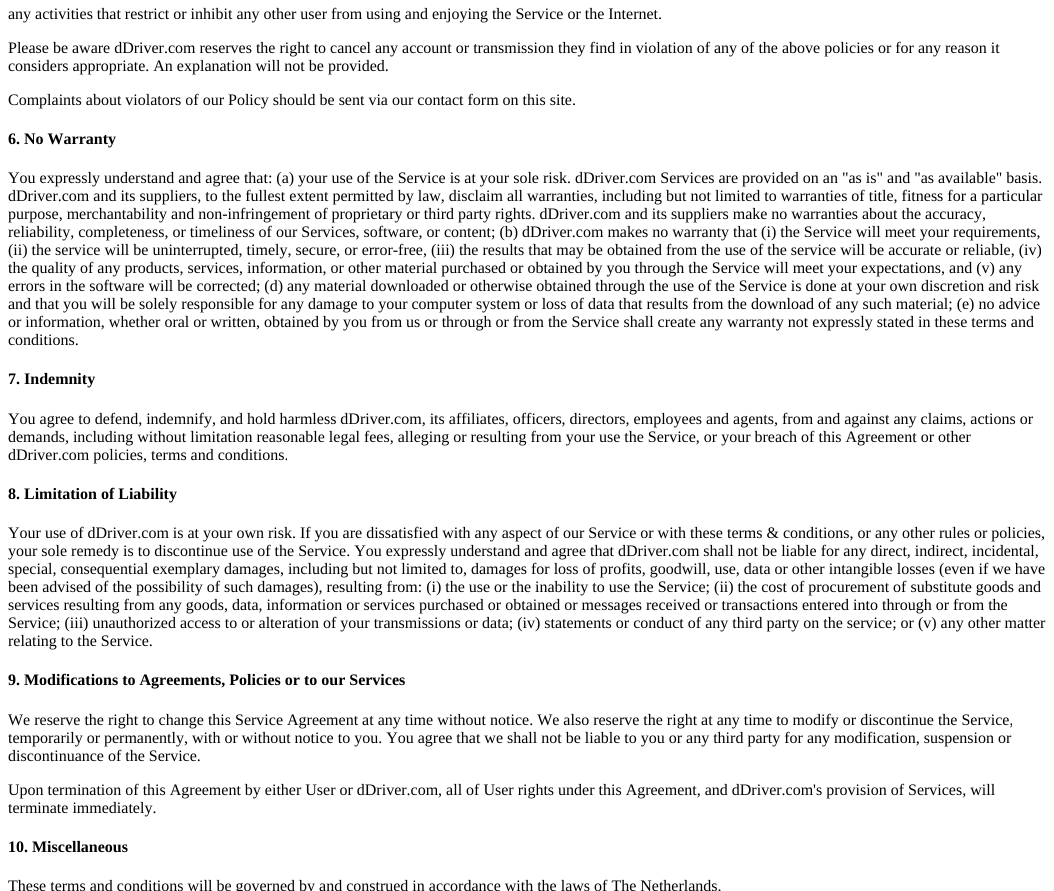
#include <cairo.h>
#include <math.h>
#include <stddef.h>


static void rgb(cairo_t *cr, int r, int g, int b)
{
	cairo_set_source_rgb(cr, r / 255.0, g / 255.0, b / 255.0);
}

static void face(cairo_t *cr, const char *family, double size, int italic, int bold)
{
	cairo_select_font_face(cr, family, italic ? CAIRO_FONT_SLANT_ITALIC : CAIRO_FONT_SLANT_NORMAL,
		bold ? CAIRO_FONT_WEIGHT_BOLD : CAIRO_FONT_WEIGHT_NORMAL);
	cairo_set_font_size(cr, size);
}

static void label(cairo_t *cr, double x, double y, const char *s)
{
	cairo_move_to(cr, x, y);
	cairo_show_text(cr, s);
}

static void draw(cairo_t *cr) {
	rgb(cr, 255, 255, 255);
	cairo_paint(cr);
	face(cr, "Liberation Serif", 16, 0, 0);
	rgb(cr, 0, 0, 0);
	label(cr, 8, 19, "any activities that restrict or inhibit any other user from using and enjoying the Service or the Internet.");
	label(cr, 8, 53, "Please be aware dDriver.com reserves the right to cancel any account or transmission they find in violation of any of the above policies or for any reason it");
	label(cr, 8, 71, "considers appropriate. An explanation will not be provided.");
	label(cr, 8, 105, "Complaints about violators of our Policy should be sent via our contact form on this site.");
	face(cr, "Liberation Serif", 16, 0, 1);
	label(cr, 8, 144, "6. No Warranty");
	face(cr, "Liberation Serif", 16, 0, 0);
	label(cr, 8, 183, "You expressly understand and agree that: (a) your use of the Service is at your sole risk. dDriver.com Services are provided on an \"as is\" and \"as available\" basis.");
	label(cr, 8, 201, "dDriver.com and its suppliers, to the fullest extent permitted by law, disclaim all warranties, including but not limited to warranties of title, fitness for a particular");
	label(cr, 8, 219, "purpose, merchantability and non-infringement of proprietary or third party rights. dDriver.com and its suppliers make no warranties about the accuracy,");
	label(cr, 8, 237, "reliability, completeness, or timeliness of our Services, software, or content; (b) dDriver.com makes no warranty that (i) the Service will meet your requirements,");
	label(cr, 8, 255, "(ii) the service will be uninterrupted, timely, secure, or error-free, (iii) the results that may be obtained from the use of the service will be accurate or reliable, (iv)");
	label(cr, 8, 273, "the quality of any products, services, information, or other material purchased or obtained by you through the Service will meet your expectations, and (v) any");
	label(cr, 8, 291, "errors in the software will be corrected; (d) any material downloaded or otherwise obtained through the use of the Service is done at your own discretion and risk");
	label(cr, 8, 309, "and that you will be solely responsible for any damage to your computer system or loss of data that results from the download of any such material; (e) no advice");
	label(cr, 8, 327, "or information, whether oral or written, obtained by you from us or through or from the Service shall create any warranty not expressly stated in these terms and");
	label(cr, 8, 345, "conditions.");
	face(cr, "Liberation Serif", 16, 0, 1);
	label(cr, 8, 384, "7. Indemnity");
	face(cr, "Liberation Serif", 16, 0, 0);
	label(cr, 8, 424, "You agree to defend, indemnify, and hold harmless dDriver.com, its affiliates, officers, directors, employees and agents, from and against any claims, actions or");
	label(cr, 8, 442, "demands, including without limitation reasonable legal fees, alleging or resulting from your use the Service, or your breach of this Agreement or other");
	label(cr, 8, 460, "dDriver.com policies, terms and conditions.");
	face(cr, "Liberation Serif", 16, 0, 1);
	label(cr, 8, 499, "8. Limitation of Liability");
	face(cr, "Liberation Serif", 16, 0, 0);
	label(cr, 8, 538, "Your use of dDriver.com is at your own risk. If you are dissatisfied with any aspect of our Service or with these terms & conditions, or any other rules or policies,");
	label(cr, 8, 556, "your sole remedy is to discontinue use of the Service. You expressly understand and agree that dDriver.com shall not be liable for any direct, indirect, incidental,");
	label(cr, 8, 574, "special, consequential exemplary damages, including but not limited to, damages for loss of profits, goodwill, use, data or other intangible losses (even if we have");
	label(cr, 8, 592, "been advised of the possibility of such damages), resulting from: (i) the use or the inability to use the Service; (ii) the cost of procurement of substitute goods and");
	label(cr, 8, 610, "services resulting from any goods, data, information or services purchased or obtained or messages received or transactions entered into through or from the");
	label(cr, 8, 628, "Service; (iii) unauthorized access to or alteration of your transmissions or data; (iv) statements or conduct of any third party on the service; or (v) any other matter");
	label(cr, 8, 646, "relating to the Service.");
	face(cr, "Liberation Serif", 16, 0, 1);
	label(cr, 8, 685, "9. Modifications to Agreements, Policies or to our Services");
	face(cr, "Liberation Serif", 16, 0, 0);
	label(cr, 8, 725, "We reserve the right to change this Service Agreement at any time without notice. We also reserve the right at any time to modify or discontinue the Service,");
	label(cr, 8, 743, "temporarily or permanently, with or without notice to you. You agree that we shall not be liable to you or any third party for any modification, suspension or");
	label(cr, 8, 761, "discontinuance of the Service.");
	label(cr, 8, 795, "Upon termination of this Agreement by either User or dDriver.com, all of User rights under this Agreement, and dDriver.com's provision of Services, will");
	label(cr, 8, 813, "terminate immediately.");
	face(cr, "Liberation Serif", 16, 0, 1);
	label(cr, 8, 852, "10. Miscellaneous");
	face(cr, "Liberation Serif", 16, 0, 0);
	label(cr, 8, 891, "These terms and conditions will be governed by and construed in accordance with the laws of The Netherlands.");
}

int main(void) {
	cairo_surface_t *surface = cairo_image_surface_create(CAIRO_FORMAT_RGB24, 1054, 891);
	cairo_t *cr = cairo_create(surface);
	cairo_font_options_t *options = cairo_font_options_create();
	cairo_font_options_set_hint_metrics(options, CAIRO_HINT_METRICS_OFF);
	cairo_font_options_set_hint_style(options, CAIRO_HINT_STYLE_NONE);
	cairo_set_font_options(cr, options);
	cairo_set_miter_limit(cr, 4);
	draw(cr);
	cairo_surface_write_to_png(surface, "render.png");
	cairo_font_options_destroy(options);
	cairo_destroy(cr);
	cairo_surface_destroy(surface);
	return 0;
}
